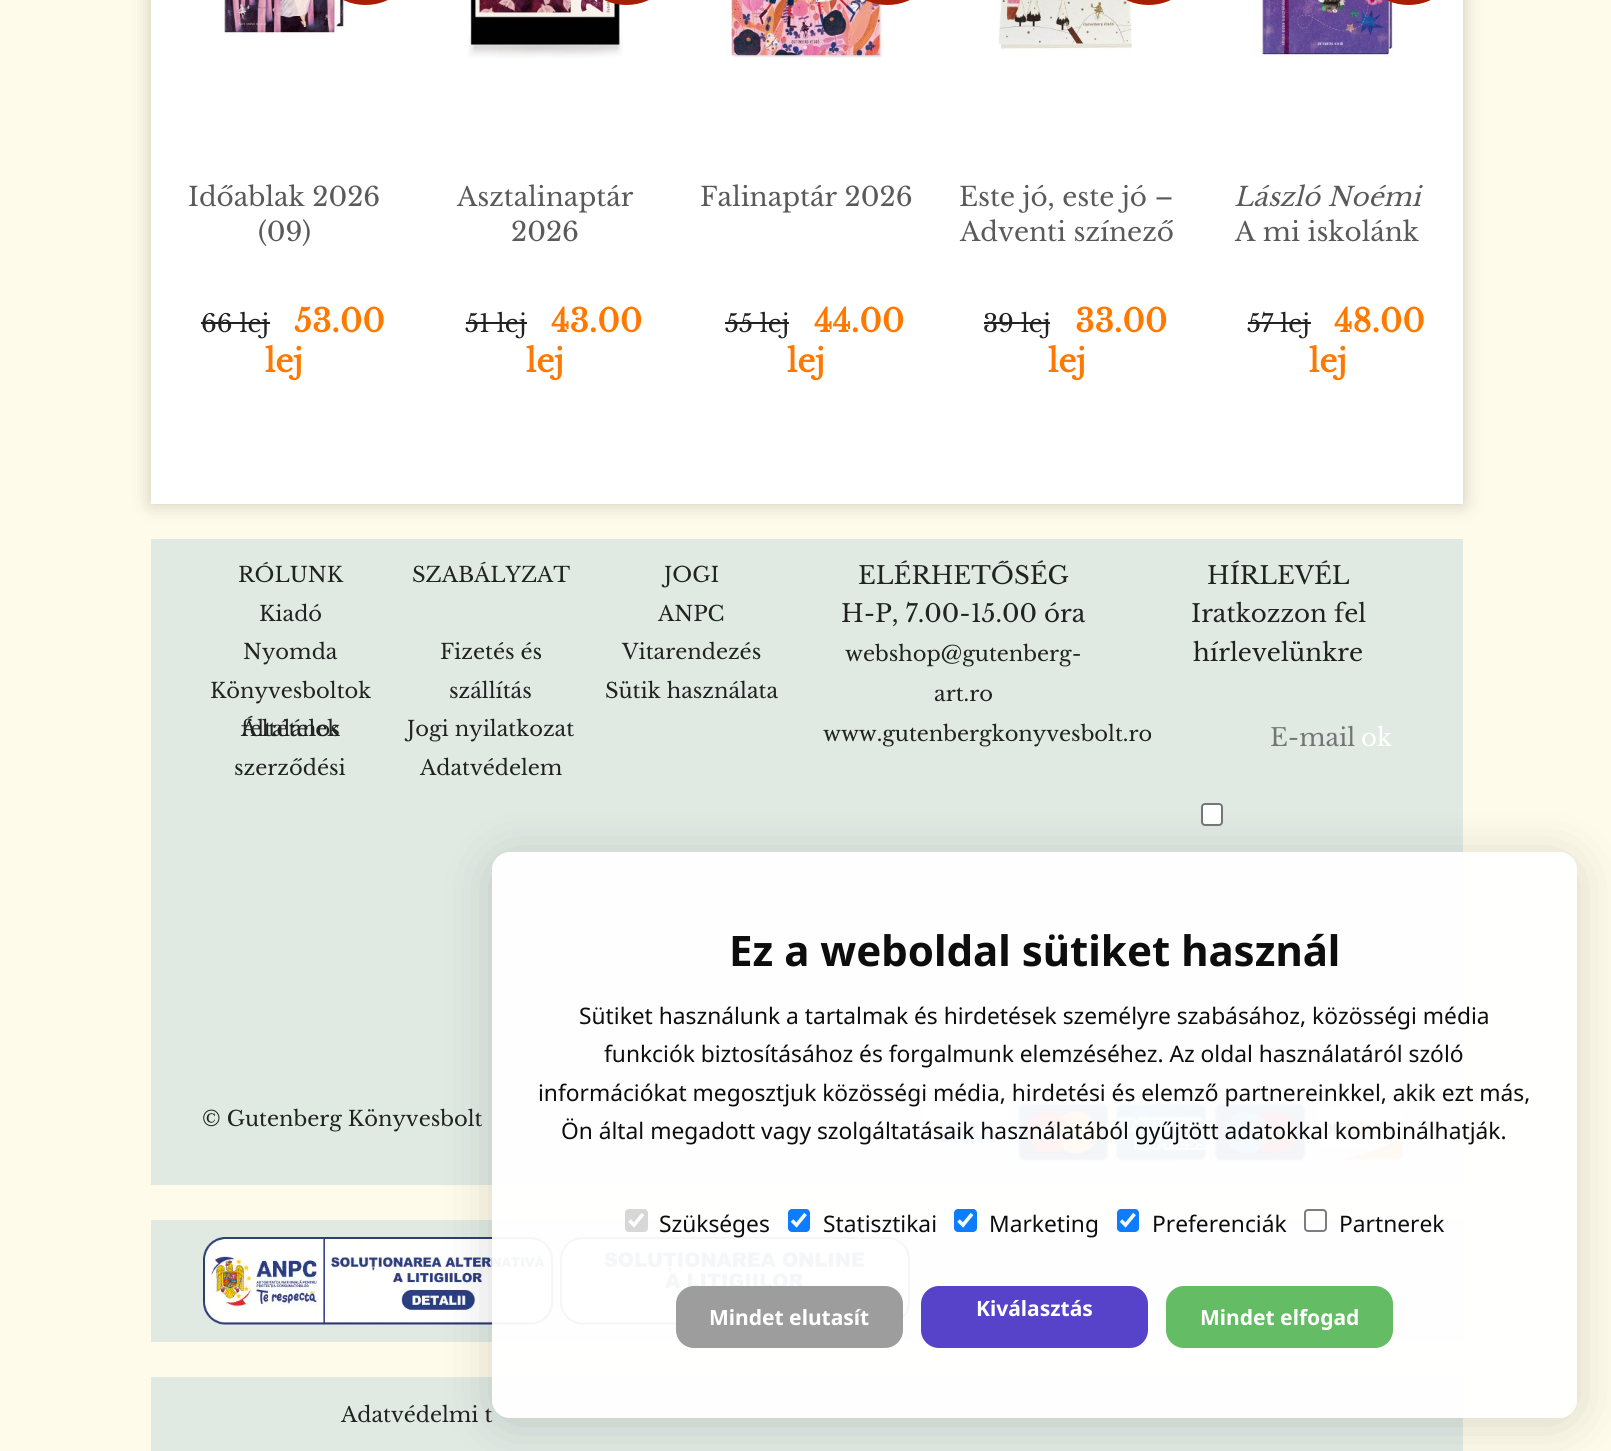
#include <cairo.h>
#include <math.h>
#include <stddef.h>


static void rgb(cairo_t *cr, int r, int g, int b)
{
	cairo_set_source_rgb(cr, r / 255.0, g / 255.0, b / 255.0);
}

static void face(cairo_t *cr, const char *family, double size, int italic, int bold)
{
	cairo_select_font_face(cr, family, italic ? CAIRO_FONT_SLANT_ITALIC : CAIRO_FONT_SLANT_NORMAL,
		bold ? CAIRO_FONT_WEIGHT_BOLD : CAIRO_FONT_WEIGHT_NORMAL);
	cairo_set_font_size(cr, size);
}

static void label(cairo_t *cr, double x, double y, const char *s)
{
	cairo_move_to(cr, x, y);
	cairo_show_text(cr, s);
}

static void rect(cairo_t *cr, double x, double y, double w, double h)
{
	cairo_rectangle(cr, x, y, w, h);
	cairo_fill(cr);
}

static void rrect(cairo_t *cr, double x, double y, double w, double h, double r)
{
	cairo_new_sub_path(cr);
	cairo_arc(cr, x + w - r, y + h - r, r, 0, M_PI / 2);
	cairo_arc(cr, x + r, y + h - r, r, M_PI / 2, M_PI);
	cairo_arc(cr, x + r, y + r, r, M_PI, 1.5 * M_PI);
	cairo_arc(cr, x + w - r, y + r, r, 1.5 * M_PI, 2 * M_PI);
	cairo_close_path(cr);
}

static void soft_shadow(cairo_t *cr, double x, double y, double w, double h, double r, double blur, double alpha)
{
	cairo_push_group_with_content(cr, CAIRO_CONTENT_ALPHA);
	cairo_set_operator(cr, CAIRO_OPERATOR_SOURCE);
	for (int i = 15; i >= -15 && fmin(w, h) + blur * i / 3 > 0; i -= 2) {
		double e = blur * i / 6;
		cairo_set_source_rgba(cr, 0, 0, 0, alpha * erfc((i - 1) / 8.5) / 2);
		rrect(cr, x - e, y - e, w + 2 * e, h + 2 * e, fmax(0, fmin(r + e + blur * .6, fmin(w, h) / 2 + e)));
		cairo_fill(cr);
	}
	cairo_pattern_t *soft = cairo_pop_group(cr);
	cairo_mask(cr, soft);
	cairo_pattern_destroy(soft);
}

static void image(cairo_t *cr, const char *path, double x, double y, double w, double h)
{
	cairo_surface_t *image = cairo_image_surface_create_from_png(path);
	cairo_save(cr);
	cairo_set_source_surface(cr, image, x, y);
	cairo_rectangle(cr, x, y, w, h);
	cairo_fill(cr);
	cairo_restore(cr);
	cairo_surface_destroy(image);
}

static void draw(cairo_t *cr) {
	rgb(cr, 255, 251, 234);
	cairo_paint(cr);
	rgb(cr, 0, 0, 0);
	soft_shadow(cr, 151, -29, 1312, 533, 0, 9.5, 0.2);
	rgb(cr, 255, 255, 255);
	rect(cr, 151, 0, 1312, 504);
	image(cr, "image0.png", 222, 0, 123, 34);
	rgb(cr, 168, 30, 0);
	rrect(cr, 313, -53, 105, 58, 52.5);
	cairo_fill(cr);
	face(cr, "Libre Baskerville", 26.25, 0, 0);
	rgb(cr, 90, 90, 90);
	label(cr, 188, 206, "Időablak 2026");
	label(cr, 258, 241, "(09)");
	face(cr, "Libre Baskerville", 24.5, 0, 0);
	rgb(cr, 34, 34, 34);
	label(cr, 201, 332, "66 lej");
	rect(cr, 201, 322, 69, 2);
	face(cr, "Libre Baskerville", 31.5, 0, 1);
	rgb(cr, 255, 120, 0);
	label(cr, 294, 332, "53.00");
	label(cr, 265, 372, "lej");
	image(cr, "image1.png", 468, 0, 155, 58);
	rgb(cr, 168, 30, 0);
	rrect(cr, 574, -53, 105, 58, 52.5);
	cairo_fill(cr);
	face(cr, "Libre Baskerville", 26.25, 0, 0);
	rgb(cr, 90, 90, 90);
	label(cr, 457, 206, "Asztalinaptár");
	label(cr, 511, 241, "2026");
	face(cr, "Libre Baskerville", 24.5, 0, 0);
	rgb(cr, 34, 34, 34);
	label(cr, 465, 332, "51 lej");
	rect(cr, 466, 322, 61, 2);
	face(cr, "Libre Baskerville", 31.5, 0, 1);
	rgb(cr, 255, 120, 0);
	label(cr, 551, 332, "43.00");
	label(cr, 526, 372, "lej");
	image(cr, "image2.png", 731, 0, 153, 58);
	rgb(cr, 168, 30, 0);
	rrect(cr, 835, -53, 105, 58, 52.5);
	cairo_fill(cr);
	face(cr, "Libre Baskerville", 26.25, 0, 0);
	rgb(cr, 90, 90, 90);
	label(cr, 700, 206, "Falinaptár 2026");
	face(cr, "Libre Baskerville", 24.5, 0, 0);
	rgb(cr, 34, 34, 34);
	label(cr, 725, 332, "55 lej");
	rect(cr, 725, 322, 64, 2);
	face(cr, "Libre Baskerville", 31.5, 0, 1);
	rgb(cr, 255, 120, 0);
	label(cr, 814, 332, "44.00");
	label(cr, 787, 372, "lej");
	image(cr, "image3.png", 998, 0, 134, 51);
	rgb(cr, 168, 30, 0);
	rrect(cr, 1096, -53, 105, 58, 52.5);
	cairo_fill(cr);
	face(cr, "Libre Baskerville", 26.25, 0, 0);
	rgb(cr, 90, 90, 90);
	label(cr, 959, 206, "Este jó, este jó –");
	label(cr, 960, 241, "Adventi színező");
	face(cr, "Libre Baskerville", 24.5, 0, 0);
	rgb(cr, 34, 34, 34);
	label(cr, 983, 332, "39 lej");
	rect(cr, 984, 322, 66, 2);
	face(cr, "Libre Baskerville", 31.5, 0, 1);
	rgb(cr, 255, 120, 0);
	label(cr, 1075, 332, "33.00");
	label(cr, 1048, 372, "lej");
	image(cr, "image4.png", 1253, 0, 140, 58);
	rgb(cr, 168, 30, 0);
	rrect(cr, 1356, -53, 105, 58, 52.5);
	cairo_fill(cr);
	face(cr, "Libre Baskerville", 26.25, 1, 0);
	rgb(cr, 90, 90, 90);
	label(cr, 1234, 206, "László Noémi");
	face(cr, "Libre Baskerville", 26.25, 0, 0);
	label(cr, 1235, 241, "A mi iskolánk");
	face(cr, "Libre Baskerville", 24.5, 0, 0);
	rgb(cr, 34, 34, 34);
	label(cr, 1247, 332, "57 lej");
	rect(cr, 1248, 322, 63, 2);
	face(cr, "Libre Baskerville", 31.5, 0, 1);
	rgb(cr, 255, 120, 0);
	label(cr, 1334, 332, "48.00");
	label(cr, 1309, 372, "lej");
	rgb(cr, 224, 234, 227);
	rect(cr, 151, 539, 1312, 646);
	face(cr, "Libre Baskerville", 21, 0, 0);
	rgb(cr, 34, 34, 34);
	label(cr, 238, 582, "RÓLUNK");
	label(cr, 412, 582, "SZABÁLYZAT");
	label(cr, 664, 582, "JOGI");
	face(cr, "Libre Baskerville", 24.5, 0, 0);
	label(cr, 858, 584, "ELÉRHETŐSÉG");
	label(cr, 1207, 584, "HÍRLEVÉL");
	face(cr, "Libre Baskerville", 21, 0, 0);
	label(cr, 259, 621, "Kiadó");
	label(cr, 658, 621, "ANPC");
	label(cr, 243, 659, "Nyomda");
	label(cr, 440, 659, "Fizetés és");
	label(cr, 449, 698, "szállítás");
	label(cr, 622, 659, "Vitarendezés");
	label(cr, 210, 698, "Könyvesboltok");
	label(cr, 605, 698, "Sütik használata");
	label(cr, 241, 736, "Általános");
	label(cr, 241, 736, "feltételek");
	label(cr, 234, 775, "szerződési");
	label(cr, 407, 736, "Jogi nyilatkozat");
	label(cr, 420, 775, "Adatvédelem");
	face(cr, "Libre Baskerville", 24.5, 0, 0);
	label(cr, 841, 622, "H-P, 7.00-15.00 óra");
	face(cr, "Libre Baskerville", 21, 0, 0);
	label(cr, 845, 661, "webshop@gutenberg-");
	label(cr, 934, 701, "art.ro");
	label(cr, 823, 741, "www.gutenbergkonyvesbolt.ro");
	face(cr, "Libre Baskerville", 24.5, 0, 0);
	label(cr, 1191, 622, "Iratkozzon fel");
	label(cr, 1193, 661, "hírlevelünkre");
	rgb(cr, 117, 117, 117);
	label(cr, 1270, 746, "E-mail");
	rgb(cr, 255, 255, 255);
	label(cr, 1361, 746, "ok");
	rrect(cr, 1202, 804, 20, 21, 3);
	cairo_fill_preserve(cr);
	rgb(cr, 118, 118, 118);
	cairo_stroke(cr);
	face(cr, "Libre Baskerville", 21, 0, 0);
	rgb(cr, 34, 34, 34);
	label(cr, 202, 1126, "© Gutenberg Könyvesbolt");
	image(cr, "image5.png", 922, 1103, 482, 58);
	rgb(cr, 224, 234, 227);
	rect(cr, 151, 1220, 1312, 122);
	image(cr, "image6.png", 203, 1237, 350, 88);
	image(cr, "image7.png", 560, 1237, 350, 88);
	rect(cr, 151, 1377, 1312, 74);
	cairo_save(cr);
	cairo_set_fill_rule(cr, CAIRO_FILL_RULE_EVEN_ODD);
	cairo_new_path(cr);
	cairo_move_to(cr, 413, 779);
	cairo_line_to(cr, 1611, 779);
	cairo_line_to(cr, 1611, 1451);
	cairo_line_to(cr, 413, 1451);
	cairo_close_path(cr);
	cairo_move_to(cr, 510, 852);
	cairo_line_to(cr, 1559, 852);
	cairo_curve_to(cr, 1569, 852, 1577, 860, 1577, 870);
	cairo_line_to(cr, 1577, 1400);
	cairo_curve_to(cr, 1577, 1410, 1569, 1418, 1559, 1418);
	cairo_line_to(cr, 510, 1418);
	cairo_curve_to(cr, 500, 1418, 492, 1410, 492, 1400);
	cairo_line_to(cr, 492, 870);
	cairo_curve_to(cr, 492, 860, 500, 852, 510, 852);
	cairo_close_path(cr);
	cairo_clip(cr);
	rgb(cr, 0, 0, 0);
	soft_shadow(cr, 492, 858, 1085, 565, 18, 26, 0.15);
	cairo_restore(cr);
	rgb(cr, 34, 34, 34);
	label(cr, 341, 1422, "Adatvédelmi t");
	cairo_set_source_rgba(cr, 1, 1, 1, 0.95);
	rrect(cr, 492, 852, 1085, 566, 18);
	cairo_fill(cr);
	face(cr, "Noto Sans", 42, 0, 1);
	rgb(cr, 13, 13, 13);
	label(cr, 729, 966, "Ez a weboldal sütiket használ");
	face(cr, "Noto Sans", 22.75, 0, 0);
	label(cr, 579, 1024, "Sütiket használunk a tartalmak és hirdetések személyre szabásához, közösségi média");
	label(cr, 604, 1062, "funkciók biztosításához és forgalmunk elemzéséhez. Az oldal használatáról szóló");
	label(cr, 538, 1101, "információkat megosztjuk közösségi média, hirdetési és elemző partnereinkkel, akik ezt más,");
	label(cr, 561, 1139, "Ön által megadott vagy szolgáltatásaik használatából gyűjtött adatokkal kombinálhatják.");
	rgb(cr, 215, 215, 215);
	rrect(cr, 625, 1209, 23, 23, 4);
	cairo_fill(cr);
	cairo_new_path(cr);
	cairo_move_to(cr, 629.5, 1220.5);
	cairo_line_to(cr, 634, 1225);
	cairo_line_to(cr, 643, 1214);
	rgb(cr, 253, 253, 253);
	cairo_set_line_width(cr, 3.6);
	cairo_stroke(cr);
	rgb(cr, 13, 13, 13);
	label(cr, 659, 1232, "Szükséges");
	rgb(cr, 13, 124, 255);
	rrect(cr, 788, 1209, 22, 23, 4);
	cairo_fill(cr);
	cairo_new_path(cr);
	cairo_move_to(cr, 792, 1220.5);
	cairo_line_to(cr, 796.5, 1225);
	cairo_line_to(cr, 805.5, 1214);
	rgb(cr, 243, 248, 255);
	cairo_stroke(cr);
	rgb(cr, 13, 13, 13);
	label(cr, 823, 1232, "Statisztikai");
	rgb(cr, 13, 124, 255);
	rrect(cr, 954, 1209, 23, 23, 4);
	cairo_fill(cr);
	cairo_new_path(cr);
	cairo_move_to(cr, 958.5, 1220.5);
	cairo_line_to(cr, 963, 1225);
	cairo_line_to(cr, 972, 1214);
	rgb(cr, 243, 248, 255);
	cairo_stroke(cr);
	rgb(cr, 13, 13, 13);
	label(cr, 989, 1232, "Marketing");
	rgb(cr, 13, 124, 255);
	rrect(cr, 1117, 1209, 22, 23, 4);
	cairo_fill(cr);
	cairo_new_path(cr);
	cairo_move_to(cr, 1121, 1220.5);
	cairo_line_to(cr, 1125.5, 1225);
	cairo_line_to(cr, 1134.5, 1214);
	rgb(cr, 243, 248, 255);
	cairo_stroke(cr);
	rgb(cr, 13, 13, 13);
	label(cr, 1152, 1232, "Preferenciák");
	rrect(cr, 1305, 1210, 21, 21, 3);
	rgb(cr, 125, 125, 125);
	cairo_set_line_width(cr, 2);
	cairo_stroke(cr);
	rgb(cr, 13, 13, 13);
	label(cr, 1339, 1232, "Partnerek");
	cairo_set_source_rgba(cr, 0.6, 0.6, 0.6, 0.95);
	rrect(cr, 676, 1286, 227, 62, 18);
	cairo_fill(cr);
	face(cr, "Noto Sans", 21, 0, 1);
	rgb(cr, 255, 255, 255);
	label(cr, 709, 1325, "Mindet elutasít");
	rgb(cr, 87, 66, 202);
	rrect(cr, 921, 1286, 227, 62, 18);
	cairo_fill(cr);
	rgb(cr, 255, 255, 255);
	label(cr, 976, 1316, "Kiválasztás");
	rgb(cr, 100, 188, 100);
	rrect(cr, 1166, 1286, 227, 62, 18);
	cairo_fill(cr);
	rgb(cr, 255, 255, 255);
	label(cr, 1200, 1325, "Mindet elfogad");
}

int main(void) {
	cairo_surface_t *surface = cairo_image_surface_create(CAIRO_FORMAT_RGB24, 1611, 1451);
	cairo_t *cr = cairo_create(surface);
	cairo_font_options_t *options = cairo_font_options_create();
	cairo_font_options_set_hint_metrics(options, CAIRO_HINT_METRICS_OFF);
	cairo_font_options_set_hint_style(options, CAIRO_HINT_STYLE_NONE);
	cairo_set_font_options(cr, options);
	cairo_set_miter_limit(cr, 4);
	draw(cr);
	cairo_surface_write_to_png(surface, "render.png");
	cairo_font_options_destroy(options);
	cairo_destroy(cr);
	cairo_surface_destroy(surface);
	return 0;
}
